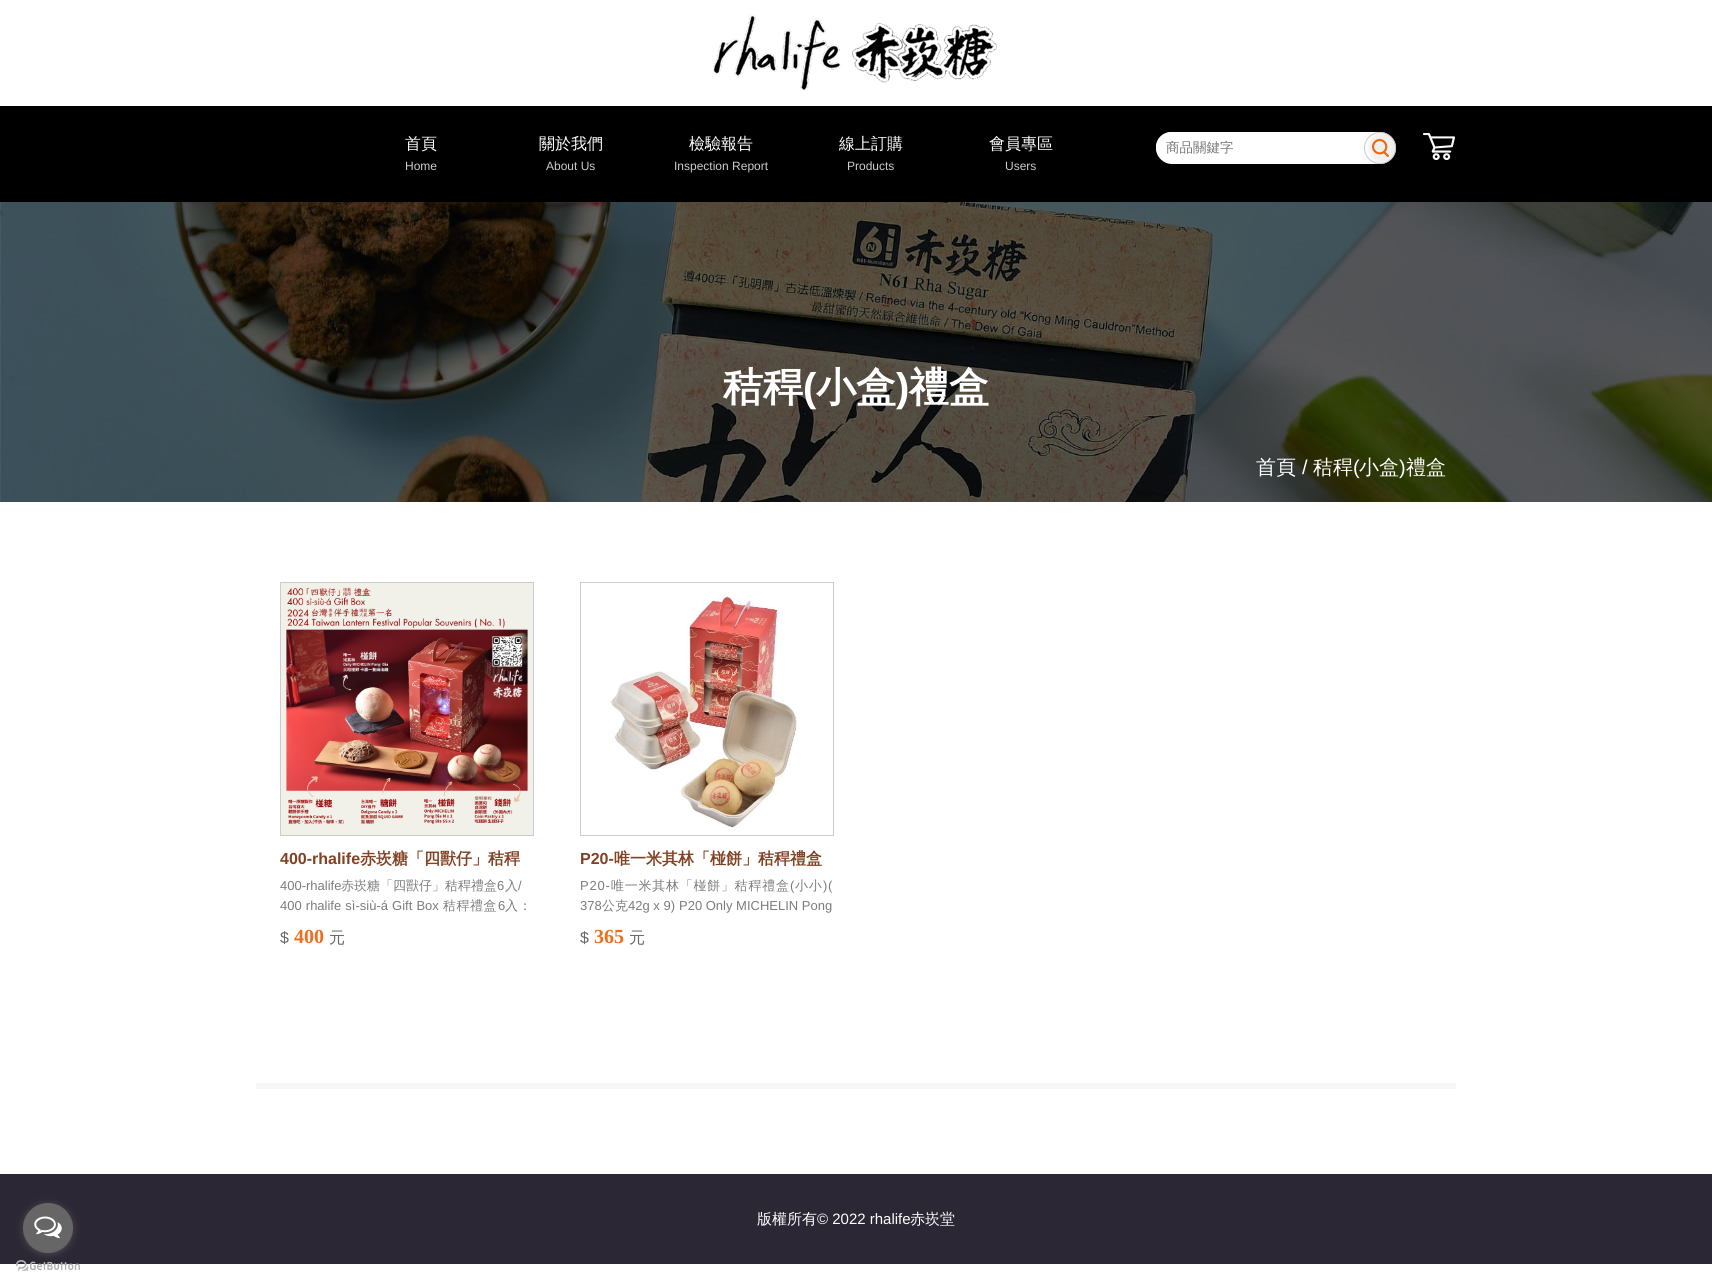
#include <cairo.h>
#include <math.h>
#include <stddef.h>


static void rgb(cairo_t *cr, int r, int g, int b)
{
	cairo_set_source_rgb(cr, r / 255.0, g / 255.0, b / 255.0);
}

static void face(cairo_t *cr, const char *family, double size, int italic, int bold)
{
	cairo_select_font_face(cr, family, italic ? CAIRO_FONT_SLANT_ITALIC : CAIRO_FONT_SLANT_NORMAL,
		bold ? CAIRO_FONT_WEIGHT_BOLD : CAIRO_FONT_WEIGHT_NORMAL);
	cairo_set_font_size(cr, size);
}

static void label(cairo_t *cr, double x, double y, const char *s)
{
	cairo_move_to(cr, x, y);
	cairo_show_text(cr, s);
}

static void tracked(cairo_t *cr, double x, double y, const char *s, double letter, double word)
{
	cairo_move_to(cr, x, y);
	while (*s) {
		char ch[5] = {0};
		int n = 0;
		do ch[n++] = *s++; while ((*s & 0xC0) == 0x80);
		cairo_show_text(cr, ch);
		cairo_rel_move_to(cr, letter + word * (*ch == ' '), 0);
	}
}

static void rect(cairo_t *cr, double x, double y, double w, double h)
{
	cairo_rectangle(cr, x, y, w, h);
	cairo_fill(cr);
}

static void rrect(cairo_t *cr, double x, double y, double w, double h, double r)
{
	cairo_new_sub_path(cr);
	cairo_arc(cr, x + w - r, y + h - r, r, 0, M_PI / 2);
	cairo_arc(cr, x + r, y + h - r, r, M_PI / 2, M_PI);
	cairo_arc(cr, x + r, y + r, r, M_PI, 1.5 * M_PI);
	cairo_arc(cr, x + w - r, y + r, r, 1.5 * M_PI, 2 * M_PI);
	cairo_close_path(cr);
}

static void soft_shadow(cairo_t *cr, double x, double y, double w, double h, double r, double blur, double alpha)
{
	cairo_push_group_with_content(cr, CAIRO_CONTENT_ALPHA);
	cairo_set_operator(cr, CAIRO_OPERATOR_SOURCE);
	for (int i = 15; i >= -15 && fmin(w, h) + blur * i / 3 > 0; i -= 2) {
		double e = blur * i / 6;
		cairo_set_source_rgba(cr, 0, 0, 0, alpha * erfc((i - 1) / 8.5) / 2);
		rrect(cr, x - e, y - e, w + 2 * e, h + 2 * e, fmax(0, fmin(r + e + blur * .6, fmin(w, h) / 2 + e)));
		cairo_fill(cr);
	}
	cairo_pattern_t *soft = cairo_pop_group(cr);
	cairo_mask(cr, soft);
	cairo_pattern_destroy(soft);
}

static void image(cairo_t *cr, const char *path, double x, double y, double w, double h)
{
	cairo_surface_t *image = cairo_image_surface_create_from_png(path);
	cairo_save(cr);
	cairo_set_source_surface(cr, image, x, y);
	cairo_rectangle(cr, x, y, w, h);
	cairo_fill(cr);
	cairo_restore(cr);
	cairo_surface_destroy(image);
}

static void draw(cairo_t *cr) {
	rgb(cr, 255, 255, 255);
	cairo_paint(cr);
	image(cr, "image0.png", 713, 15, 285, 76);
	rgb(cr, 0, 0, 0);
	rect(cr, 0, 106, 1712, 96);
	face(cr, "WenQuanYi Zen Hei Medium", 16, 0, 0);
	rgb(cr, 255, 255, 255);
	label(cr, 405, 149, "首頁");
	face(cr, "Liberation Sans", 12, 0, 0);
	rgb(cr, 204, 204, 204);
	label(cr, 405, 170, "Home");
	face(cr, "WenQuanYi Zen Hei Medium", 16, 0, 0);
	rgb(cr, 255, 255, 255);
	label(cr, 539, 149, "關於我們");
	face(cr, "Liberation Sans", 12, 0, 0);
	rgb(cr, 204, 204, 204);
	label(cr, 546, 170, "About Us");
	face(cr, "WenQuanYi Zen Hei Medium", 16, 0, 0);
	rgb(cr, 255, 255, 255);
	label(cr, 689, 149, "檢驗報告");
	face(cr, "Liberation Sans", 12, 0, 0);
	rgb(cr, 204, 204, 204);
	label(cr, 674, 170, "Inspection Report");
	face(cr, "WenQuanYi Zen Hei Medium", 16, 0, 0);
	rgb(cr, 255, 255, 255);
	label(cr, 839, 149, "線上訂購");
	face(cr, "Liberation Sans", 12, 0, 0);
	rgb(cr, 204, 204, 204);
	label(cr, 847, 170, "Products");
	face(cr, "WenQuanYi Zen Hei Medium", 16, 0, 0);
	rgb(cr, 255, 255, 255);
	label(cr, 989, 149, "會員專區");
	face(cr, "Liberation Sans", 12, 0, 0);
	rgb(cr, 204, 204, 204);
	label(cr, 1005, 170, "Users");
	rgb(cr, 255, 255, 255);
	rrect(cr, 1156, 132, 240, 32, 16);
	cairo_fill(cr);
	rrect(cr, 1156, 132, 192, 30, 15);
	cairo_fill(cr);
	face(cr, "WenQuanYi Zen Hei Medium", 13.5, 0, 0);
	rgb(cr, 117, 117, 117);
	label(cr, 1166, 152, "商品關鍵字");
	image(cr, "image1.png", 1364, 132, 32, 32);
	image(cr, "image2.png", 1423, 133, 32, 27);
	image(cr, "image3.png", 0, 202, 1712, 300);
	face(cr, "WenQuanYi Zen Hei", 40, 0, 1);
	rgb(cr, 255, 255, 255);
	label(cr, 723, 401, "秸稈");
	face(cr, "Liberation Sans", 40, 0, 1);
	label(cr, 803, 401, "(");
	face(cr, "WenQuanYi Zen Hei", 40, 0, 1);
	label(cr, 816, 401, "小盒");
	face(cr, "Liberation Sans", 40, 0, 1);
	label(cr, 896, 401, ")");
	face(cr, "WenQuanYi Zen Hei", 40, 0, 1);
	label(cr, 909, 401, "禮盒");
	face(cr, "WenQuanYi Zen Hei Medium", 20, 0, 0);
	label(cr, 1256, 474, "首頁");
	face(cr, "Liberation Sans", 20, 0, 0);
	label(cr, 1302, 474, "/");
	face(cr, "WenQuanYi Zen Hei Medium", 20, 0, 0);
	label(cr, 1313, 474, "秸稈");
	face(cr, "Liberation Sans", 20, 0, 0);
	label(cr, 1353, 474, "(");
	face(cr, "WenQuanYi Zen Hei Medium", 20, 0, 0);
	label(cr, 1359, 474, "小盒");
	face(cr, "Liberation Sans", 20, 0, 0);
	label(cr, 1399, 474, ")");
	face(cr, "WenQuanYi Zen Hei Medium", 20, 0, 0);
	label(cr, 1406, 474, "禮盒");
	cairo_rectangle(cr, 280.5, 582.5, 253, 253);
	rgb(cr, 204, 204, 204);
	cairo_set_line_width(cr, 1);
	cairo_stroke(cr);
	image(cr, "image4.png", 281, 583, 252, 252);
	face(cr, "Liberation Sans", 16, 0, 1);
	rgb(cr, 129, 65, 35);
	label(cr, 280, 864, "400-rhalife");
	face(cr, "WenQuanYi Zen Hei", 16, 0, 1);
	label(cr, 360, 864, "赤崁糖「四獸仔」秸稈");
	face(cr, "Liberation Sans", 13, 0, 0);
	rgb(cr, 124, 124, 124);
	label(cr, 280, 890, "400-rhalife");
	face(cr, "WenQuanYi Zen Hei Medium", 13, 0, 0);
	label(cr, 341, 890, "赤崁糖「四獸仔」秸稈禮盒");
	face(cr, "Liberation Sans", 13, 0, 0);
	label(cr, 497, 890, "6");
	face(cr, "WenQuanYi Zen Hei Medium", 13, 0, 0);
	label(cr, 505, 890, "入");
	face(cr, "Liberation Sans", 13, 0, 0);
	label(cr, 518, 890, "/");
	tracked(cr, 280, 910, "400 rhalife sì-siù-á Gift Box", 0, 0.5);
	face(cr, "WenQuanYi Zen Hei Medium", 13, 0, 0);
	tracked(cr, 443, 910, "秸稈禮盒", 0.5, 0);
	face(cr, "Liberation Sans", 13, 0, 0);
	tracked(cr, 498, 910, "6", 0.5, 0);
	face(cr, "WenQuanYi Zen Hei Medium", 13, 0, 0);
	tracked(cr, 505, 910, "入：", 0.5, 0);
	face(cr, "Liberation Sans", 16, 0, 0);
	rgb(cr, 102, 102, 102);
	label(cr, 280, 943, "$");
	face(cr, "Liberation Serif", 20, 0, 1);
	rgb(cr, 238, 110, 29);
	label(cr, 294, 943, "400");
	face(cr, "WenQuanYi Zen Hei Medium", 16, 0, 0);
	rgb(cr, 102, 102, 102);
	label(cr, 329, 943, "元");
	cairo_rectangle(cr, 580.5, 582.5, 253, 253);
	rgb(cr, 204, 204, 204);
	cairo_stroke(cr);
	image(cr, "image5.png", 581, 583, 252, 252);
	face(cr, "Liberation Sans", 16, 0, 1);
	rgb(cr, 129, 65, 35);
	label(cr, 580, 864, "P20-");
	face(cr, "WenQuanYi Zen Hei", 16, 0, 1);
	label(cr, 614, 864, "唯一米其林「椪餅」秸稈禮盒");
	face(cr, "Liberation Sans", 13, 0, 0);
	rgb(cr, 124, 124, 124);
	tracked(cr, 580, 890, "P20-", 0.75, 0);
	face(cr, "WenQuanYi Zen Hei Medium", 13, 0, 0);
	tracked(cr, 611, 890, "唯一米其林「椪餅」秸稈禮盒", 0.75, 0);
	face(cr, "Liberation Sans", 13, 0, 0);
	tracked(cr, 790, 890, "(", 0.75, 0);
	face(cr, "WenQuanYi Zen Hei Medium", 13, 0, 0);
	tracked(cr, 795, 890, "小小", 0.75, 0);
	face(cr, "Liberation Sans", 13, 0, 0);
	tracked(cr, 823, 890, ")(", 0.75, 0);
	label(cr, 580, 910, "378");
	face(cr, "WenQuanYi Zen Hei Medium", 13, 0, 0);
	label(cr, 602, 910, "公克");
	face(cr, "Liberation Sans", 13, 0, 0);
	label(cr, 628, 910, "42g x 9)");
	label(cr, 679, 910, "P20 Only MICHELIN Pong");
	face(cr, "Liberation Sans", 16, 0, 0);
	rgb(cr, 102, 102, 102);
	label(cr, 580, 943, "$");
	face(cr, "Liberation Serif", 20, 0, 1);
	rgb(cr, 238, 110, 29);
	label(cr, 594, 943, "365");
	face(cr, "WenQuanYi Zen Hei Medium", 16, 0, 0);
	rgb(cr, 102, 102, 102);
	label(cr, 629, 943, "元");
	rgb(cr, 247, 247, 247);
	rect(cr, 256, 1083, 1200, 6);
	rgb(cr, 44, 39, 52);
	rect(cr, 0, 1174, 1712, 90);
	image(cr, "image7.png", 16, 1260, 64, 11);
	rgb(cr, 136, 136, 136);
	soft_shadow(cr, 23, 1204, 50, 50, 25, 3.5, 0.4);
	rgb(cr, 102, 102, 102);
	cairo_arc(cr, 48, 1228, 25, 0, 2 * M_PI);
	cairo_fill(cr);
	image(cr, "image6.png", 34, 1216, 28, 23);
	face(cr, "WenQuanYi Zen Hei Medium", 15, 0, 0);
	rgb(cr, 255, 255, 255);
	label(cr, 757, 1224, "版權所有");
	face(cr, "Liberation Sans", 15, 0, 0);
	label(cr, 817, 1224, "© 2022 rhalife");
	face(cr, "WenQuanYi Zen Hei Medium", 15, 0, 0);
	label(cr, 910, 1224, "赤崁堂");
}

int main(void) {
	cairo_surface_t *surface = cairo_image_surface_create(CAIRO_FORMAT_RGB24, 1712, 1287);
	cairo_t *cr = cairo_create(surface);
	cairo_font_options_t *options = cairo_font_options_create();
	cairo_font_options_set_hint_metrics(options, CAIRO_HINT_METRICS_OFF);
	cairo_font_options_set_hint_style(options, CAIRO_HINT_STYLE_NONE);
	cairo_set_font_options(cr, options);
	cairo_set_miter_limit(cr, 4);
	draw(cr);
	cairo_surface_write_to_png(surface, "render.png");
	cairo_font_options_destroy(options);
	cairo_destroy(cr);
	cairo_surface_destroy(surface);
	return 0;
}
